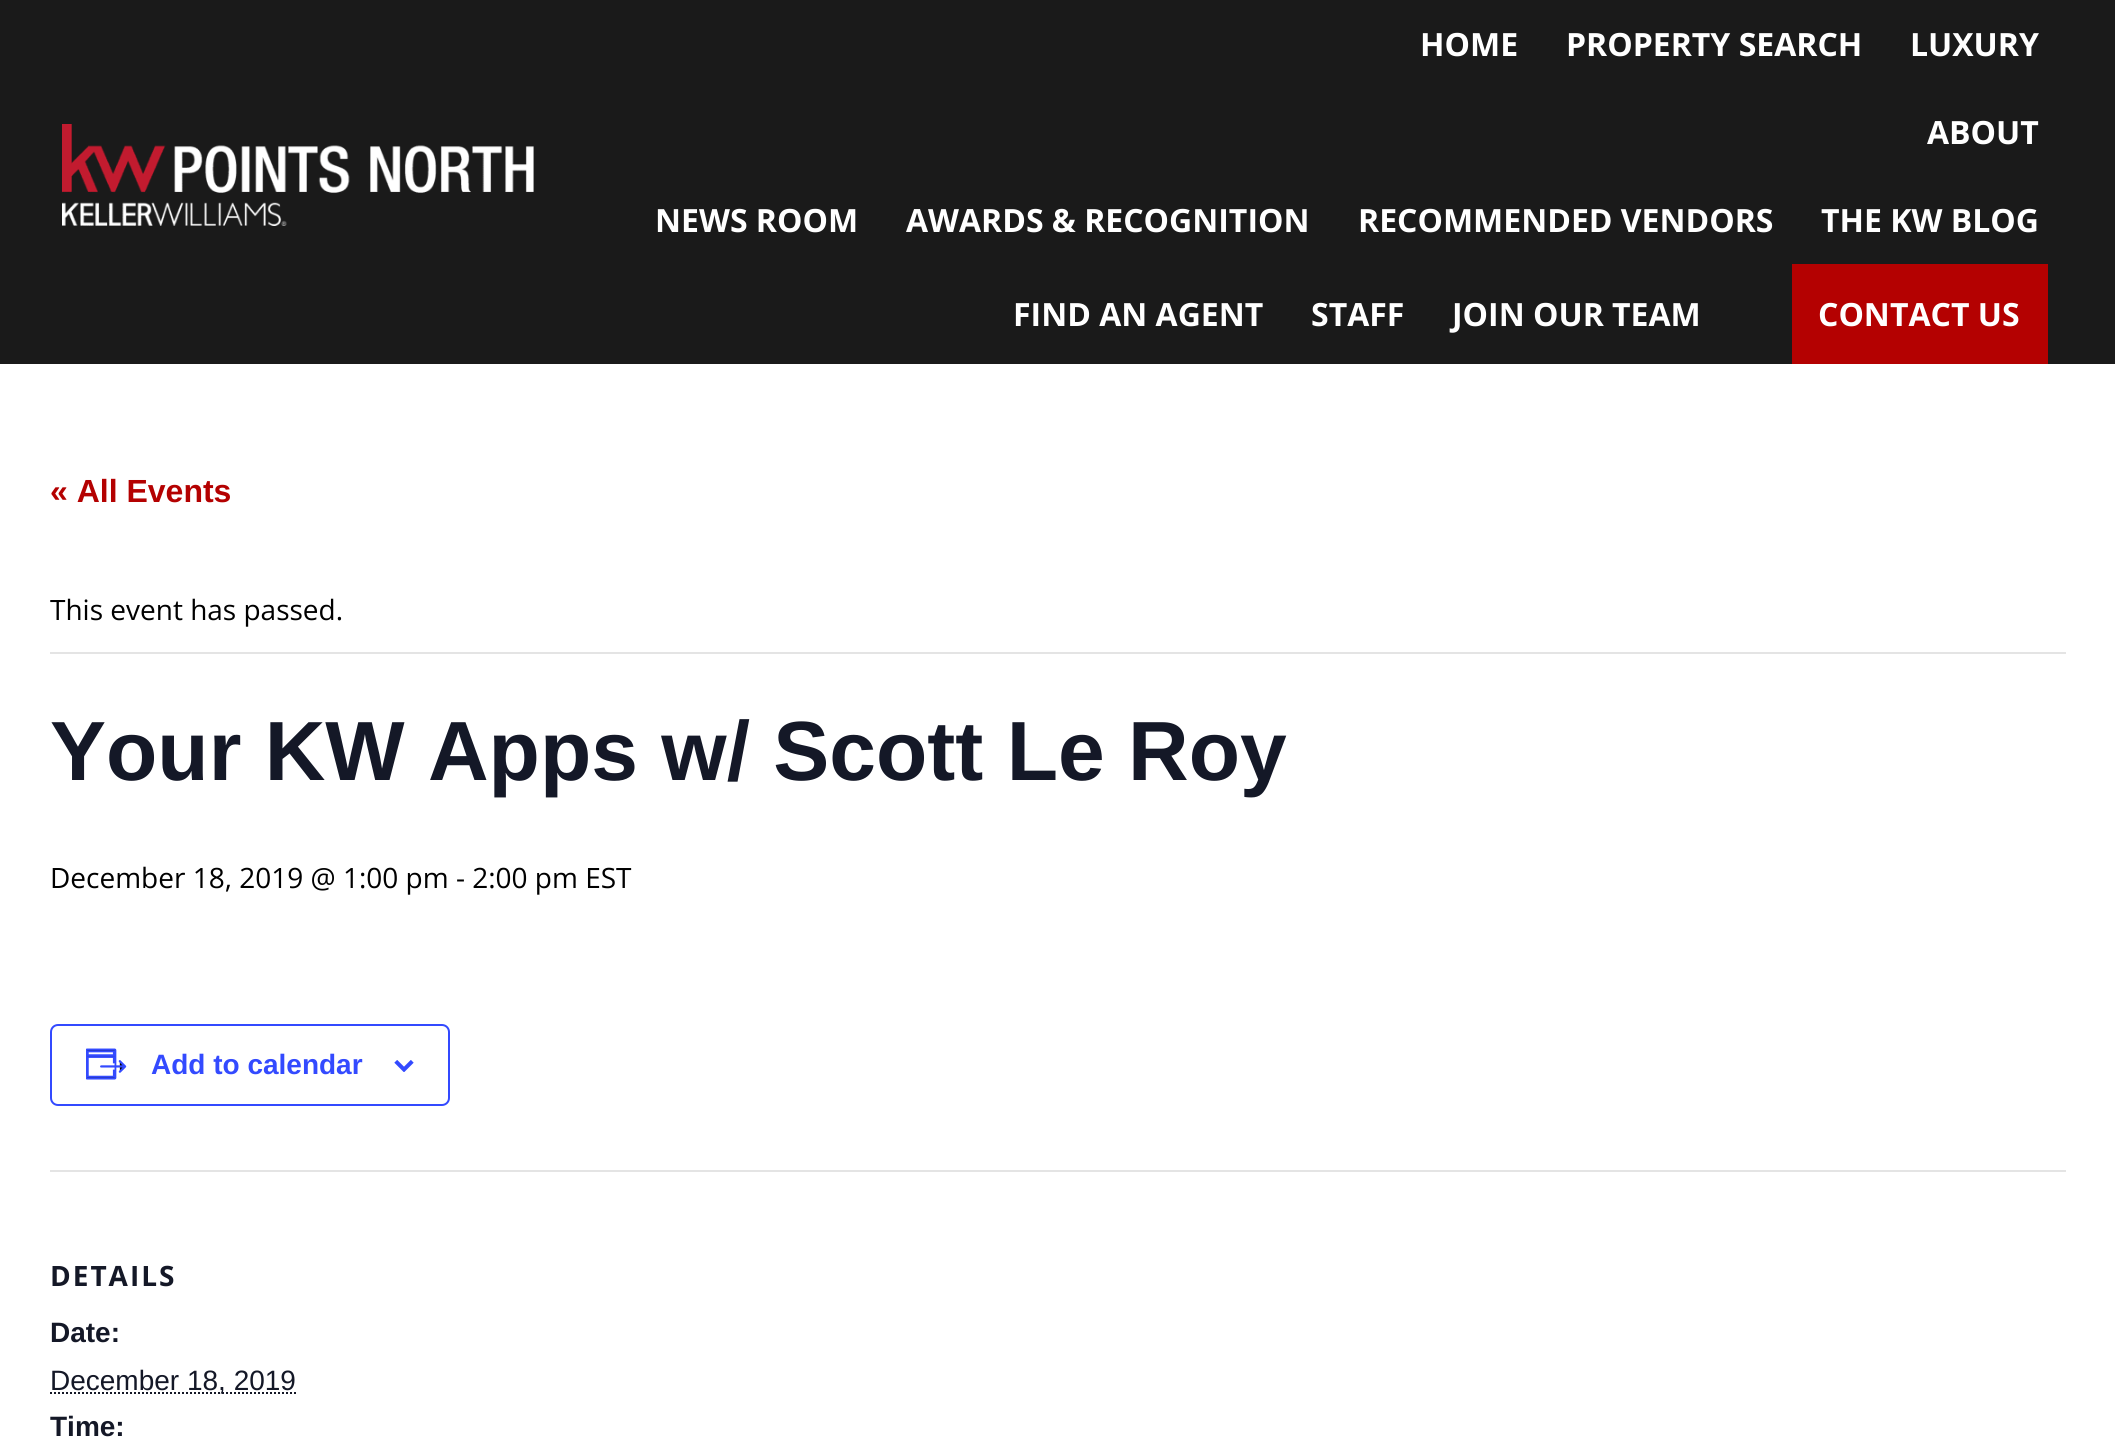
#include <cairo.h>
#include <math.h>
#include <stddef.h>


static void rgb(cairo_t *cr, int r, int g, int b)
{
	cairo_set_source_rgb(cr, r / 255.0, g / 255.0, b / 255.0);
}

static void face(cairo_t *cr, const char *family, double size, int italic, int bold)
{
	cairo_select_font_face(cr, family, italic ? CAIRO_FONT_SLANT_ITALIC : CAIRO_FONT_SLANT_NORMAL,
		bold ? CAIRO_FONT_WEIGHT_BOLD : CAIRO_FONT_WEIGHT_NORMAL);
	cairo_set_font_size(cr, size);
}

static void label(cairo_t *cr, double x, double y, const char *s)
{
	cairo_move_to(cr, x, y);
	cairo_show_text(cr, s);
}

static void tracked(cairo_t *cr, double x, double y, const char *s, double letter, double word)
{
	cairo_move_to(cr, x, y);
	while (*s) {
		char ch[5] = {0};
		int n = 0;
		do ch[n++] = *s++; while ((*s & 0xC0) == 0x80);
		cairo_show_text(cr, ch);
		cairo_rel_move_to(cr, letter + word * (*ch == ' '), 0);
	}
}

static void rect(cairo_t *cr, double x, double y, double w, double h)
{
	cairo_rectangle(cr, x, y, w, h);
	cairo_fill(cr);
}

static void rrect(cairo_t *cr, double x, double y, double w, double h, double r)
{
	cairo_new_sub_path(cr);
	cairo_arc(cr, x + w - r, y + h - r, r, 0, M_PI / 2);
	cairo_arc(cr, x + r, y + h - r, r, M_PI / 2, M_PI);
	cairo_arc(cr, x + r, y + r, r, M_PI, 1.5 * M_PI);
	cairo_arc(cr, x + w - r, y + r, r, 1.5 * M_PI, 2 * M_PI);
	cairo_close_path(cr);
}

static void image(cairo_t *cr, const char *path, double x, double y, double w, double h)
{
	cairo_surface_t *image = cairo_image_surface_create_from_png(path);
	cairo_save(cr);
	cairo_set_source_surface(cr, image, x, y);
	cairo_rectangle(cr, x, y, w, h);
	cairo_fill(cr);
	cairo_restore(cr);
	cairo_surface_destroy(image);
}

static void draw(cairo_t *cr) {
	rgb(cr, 255, 255, 255);
	cairo_paint(cr);
	rgb(cr, 26, 26, 26);
	rect(cr, 0, 0, 2115, 364);
	image(cr, "image0.png", 62, 124, 472, 102);
	face(cr, "Open Sans", 32, 0, 1);
	rgb(cr, 255, 255, 255);
	label(cr, 1420, 56, "HOME");
	label(cr, 1566, 56, "PROPERTY SEARCH");
	label(cr, 1910, 56, "LUXURY");
	label(cr, 1927, 144, "ABOUT");
	label(cr, 655, 232, "NEWS ROOM");
	label(cr, 906, 232, "AWARDS & RECOGNITION");
	label(cr, 1358, 232, "RECOMMENDED VENDORS");
	label(cr, 1821, 232, "THE KW BLOG");
	label(cr, 1013, 326, "FIND AN AGENT");
	label(cr, 1311, 326, "STAFF");
	label(cr, 1452, 326, "JOIN OUR TEAM");
	rgb(cr, 180, 1, 1);
	rect(cr, 1792, 264, 256, 100);
	rgb(cr, 255, 255, 255);
	label(cr, 1818, 326, "CONTACT US");
	face(cr, "Liberation Sans", 32, 0, 1);
	rgb(cr, 180, 1, 1);
	label(cr, 50, 502, "« All Events");
	rgb(cr, 228, 228, 228);
	rect(cr, 50, 652, 2016, 2);
	face(cr, "Open Sans", 28, 0, 0);
	rgb(cr, 0, 0, 0);
	label(cr, 50, 620, "This event has passed.");
	face(cr, "Liberation Sans", 84, 0, 1);
	rgb(cr, 20, 24, 39);
	label(cr, 50, 780, "Your KW Apps w/ Scott Le Roy");
	face(cr, "Open Sans", 28, 0, 0);
	rgb(cr, 0, 0, 0);
	label(cr, 50, 888, "December 18, 2019 @ 1:00 pm - 2:00 pm EST");
	rrect(cr, 51, 1025, 398, 80, 7);
	rgb(cr, 51, 74, 255);
	cairo_stroke(cr);
	image(cr, "image1.png", 86, 1048, 41, 32);
	face(cr, "Liberation Sans", 28, 0, 1);
	label(cr, 151, 1074, "Add to calendar");
	image(cr, "image2.png", 394, 1060, 20, 12);
	rgb(cr, 228, 228, 228);
	rect(cr, 50, 1170, 2016, 2);
	face(cr, "Open Sans", 28, 0, 1);
	rgb(cr, 20, 24, 39);
	tracked(cr, 50, 1286, "DETAILS", 2, 0);
	face(cr, "Liberation Sans", 28, 0, 1);
	label(cr, 50, 1342, "Date:");
	cairo_new_path(cr);
	cairo_move_to(cr, 50, 1393);
	cairo_line_to(cr, 296, 1393);
	cairo_set_dash(cr, (double[]){2, 2}, 2, 0);
	cairo_stroke(cr);
	face(cr, "Liberation Sans", 28, 0, 0);
	label(cr, 50, 1390, "December 18, 2019");
	face(cr, "Liberation Sans", 28, 0, 1);
	label(cr, 50, 1436, "Time:");
}

int main(void) {
	cairo_surface_t *surface = cairo_image_surface_create(CAIRO_FORMAT_RGB24, 2115, 1442);
	cairo_t *cr = cairo_create(surface);
	cairo_font_options_t *options = cairo_font_options_create();
	cairo_font_options_set_hint_metrics(options, CAIRO_HINT_METRICS_OFF);
	cairo_font_options_set_hint_style(options, CAIRO_HINT_STYLE_NONE);
	cairo_set_font_options(cr, options);
	cairo_set_miter_limit(cr, 4);
	draw(cr);
	cairo_surface_write_to_png(surface, "render.png");
	cairo_font_options_destroy(options);
	cairo_destroy(cr);
	cairo_surface_destroy(surface);
	return 0;
}
